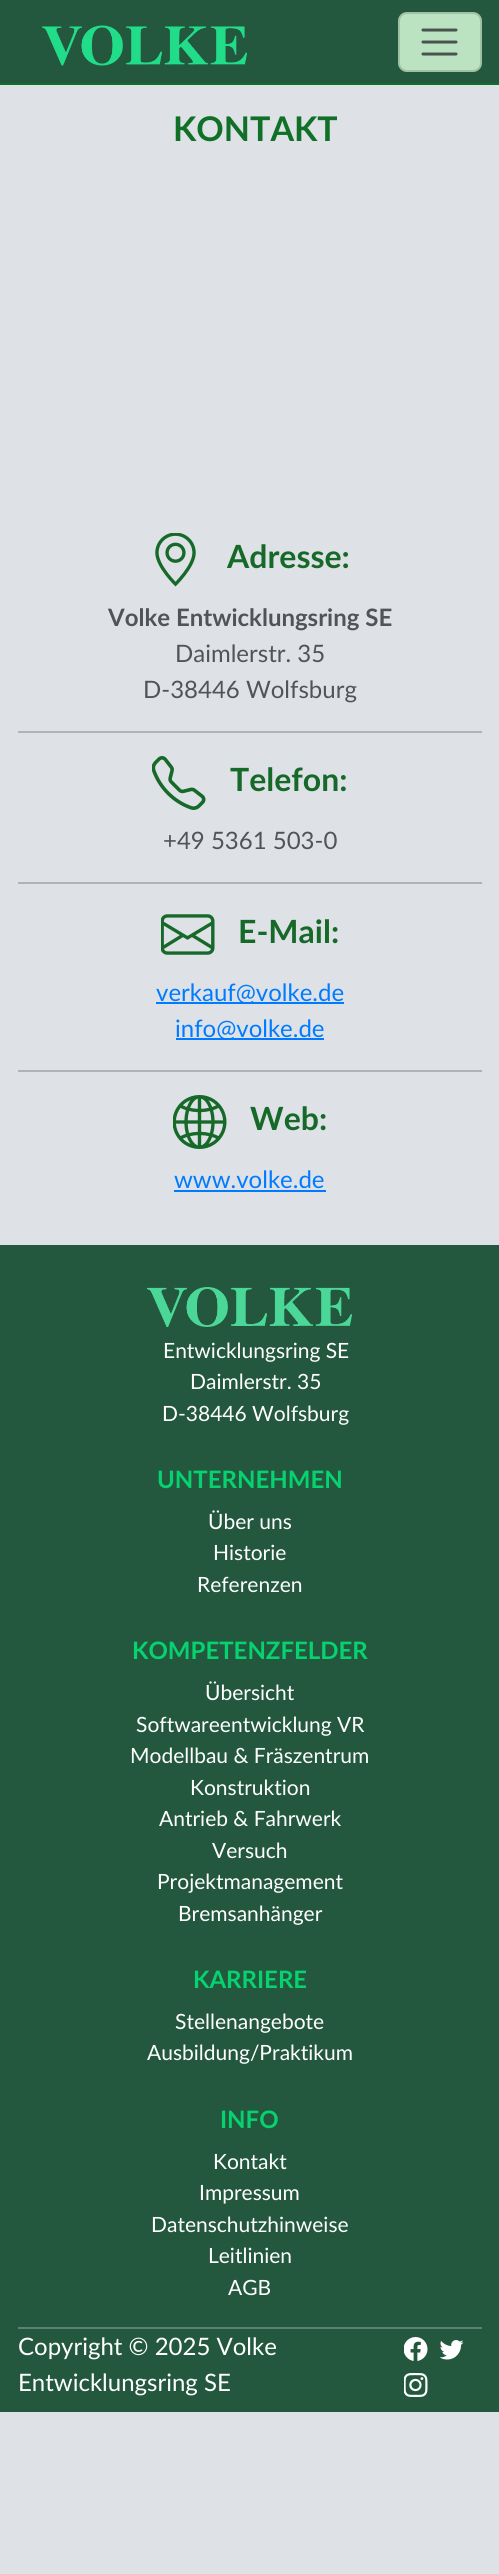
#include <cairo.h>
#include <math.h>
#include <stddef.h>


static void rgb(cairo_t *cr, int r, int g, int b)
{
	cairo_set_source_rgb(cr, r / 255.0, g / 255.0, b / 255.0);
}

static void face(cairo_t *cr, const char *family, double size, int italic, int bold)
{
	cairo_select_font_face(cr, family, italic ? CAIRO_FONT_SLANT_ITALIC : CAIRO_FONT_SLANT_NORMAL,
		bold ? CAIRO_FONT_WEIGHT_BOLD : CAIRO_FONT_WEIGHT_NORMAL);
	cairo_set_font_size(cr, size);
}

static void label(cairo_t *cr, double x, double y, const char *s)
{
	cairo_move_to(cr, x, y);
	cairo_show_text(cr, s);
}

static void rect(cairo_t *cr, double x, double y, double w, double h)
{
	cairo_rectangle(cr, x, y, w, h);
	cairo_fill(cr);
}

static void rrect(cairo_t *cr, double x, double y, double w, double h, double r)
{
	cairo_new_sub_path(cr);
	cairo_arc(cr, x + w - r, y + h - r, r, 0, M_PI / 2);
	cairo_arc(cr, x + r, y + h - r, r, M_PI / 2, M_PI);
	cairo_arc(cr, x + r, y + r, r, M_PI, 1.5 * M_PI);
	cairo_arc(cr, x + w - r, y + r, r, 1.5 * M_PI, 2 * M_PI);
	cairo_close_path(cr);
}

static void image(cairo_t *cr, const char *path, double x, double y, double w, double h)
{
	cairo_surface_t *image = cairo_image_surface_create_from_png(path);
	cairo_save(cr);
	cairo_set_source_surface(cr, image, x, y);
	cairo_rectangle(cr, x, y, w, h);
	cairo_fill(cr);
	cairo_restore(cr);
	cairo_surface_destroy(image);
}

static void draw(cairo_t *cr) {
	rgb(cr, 222, 226, 230);
	cairo_paint(cr);
	rgb(cr, 35, 88, 62);
	rect(cr, 0, 0, 499, 83);
	rgb(cr, 17, 112, 39);
	rect(cr, 0, 83, 499, 2);
	image(cr, "image0.png", 42, 25, 205, 41);
	rgb(cr, 187, 227, 193);
	rrect(cr, 398, 12, 84, 60, 9);
	cairo_fill(cr);
	rrect(cr, 399, 13, 82, 58, 8);
	cairo_set_source_rgba(cr, 0, 0, 0, 0.15);
	cairo_stroke(cr);
	cairo_new_path(cr);
	cairo_move_to(cr, 423, 30);
	cairo_line_to(cr, 456, 30);
	cairo_move_to(cr, 423, 42);
	cairo_line_to(cr, 456, 42);
	cairo_move_to(cr, 423, 54);
	cairo_line_to(cr, 456, 54);
	rgb(cr, 72, 85, 79);
	cairo_set_line_width(cr, 3);
	cairo_set_line_cap(cr, CAIRO_LINE_CAP_ROUND);
	cairo_stroke(cr);
	face(cr, "Lato", 34, 0, 1);
	rgb(cr, 17, 112, 39);
	label(cr, 173, 141, "KONTAKT");
	image(cr, "image1.png", 155, 533, 41, 54);
	face(cr, "Lato", 32, 0, 1);
	rgb(cr, 22, 105, 41);
	label(cr, 227, 568, "Adresse:");
	face(cr, "Lato", 24, 0, 1);
	rgb(cr, 80, 84, 88);
	label(cr, 108, 626, "Volke Entwicklungsring SE");
	face(cr, "Lato", 24, 0, 0);
	label(cr, 175, 662, "Daimlerstr. 35");
	label(cr, 143, 698, "D-38446 Wolfsburg");
	rgb(cr, 175, 179, 183);
	rect(cr, 18, 731, 464, 2);
	image(cr, "image2.png", 152, 756, 54, 54);
	face(cr, "Lato", 32, 0, 1);
	rgb(cr, 22, 105, 41);
	label(cr, 230, 791, "Telefon:");
	face(cr, "Lato", 24, 0, 0);
	rgb(cr, 80, 84, 88);
	label(cr, 163, 849, "+49 5361 503-0");
	rgb(cr, 175, 179, 183);
	rect(cr, 18, 882, 464, 2);
	image(cr, "image3.png", 161, 914, 54, 41);
	face(cr, "Lato", 32, 0, 1);
	rgb(cr, 22, 105, 41);
	label(cr, 238, 943, "E-Mail:");
	rgb(cr, 0, 123, 255);
	rect(cr, 156, 1002, 188, 2);
	face(cr, "Lato", 24, 0, 0);
	label(cr, 156, 1001, "verkauf@volke.de");
	rect(cr, 176, 1038, 148, 2);
	label(cr, 175, 1037, "info@volke.de");
	rgb(cr, 175, 179, 183);
	rect(cr, 18, 1070, 464, 2);
	image(cr, "image4.png", 173, 1095, 54, 54);
	face(cr, "Lato", 32, 0, 1);
	rgb(cr, 22, 105, 41);
	label(cr, 250, 1130, "Web:");
	face(cr, "Lato", 24, 0, 0);
	rgb(cr, 0, 123, 255);
	label(cr, 174, 1188, "www.volke.de");
	rect(cr, 174, 1190, 152, 2);
	rgb(cr, 35, 88, 62);
	rect(cr, 0, 1245, 499, 1167);
	image(cr, "image5.png", 147, 1287, 206, 40);
	face(cr, "Lato", 21, 0, 0);
	rgb(cr, 255, 255, 255);
	label(cr, 163, 1358, "Entwicklungsring SE");
	label(cr, 190, 1389, "Daimlerstr. 35");
	label(cr, 162, 1421, "D-38446 Wolfsburg");
	face(cr, "Lato", 24, 0, 1);
	rgb(cr, 6, 210, 112);
	label(cr, 157, 1488, "UNTERNEHMEN");
	face(cr, "Lato", 21, 0, 0);
	rgb(cr, 255, 255, 255);
	label(cr, 208, 1529, "Über uns");
	label(cr, 213, 1560, "Historie");
	label(cr, 197, 1592, "Referenzen");
	face(cr, "Lato", 24, 0, 1);
	rgb(cr, 6, 210, 112);
	label(cr, 132, 1659, "KOMPETENZFELDER");
	face(cr, "Lato", 21, 0, 0);
	rgb(cr, 255, 255, 255);
	label(cr, 205, 1700, "Übersicht");
	label(cr, 136, 1732, "Softwareentwicklung VR");
	label(cr, 130, 1763, "Modellbau & Fräszentrum");
	label(cr, 190, 1795, "Konstruktion");
	label(cr, 159, 1826, "Antrieb & Fahrwerk");
	label(cr, 212, 1858, "Versuch");
	label(cr, 157, 1889, "Projektmanagement");
	label(cr, 178, 1921, "Bremsanhänger");
	face(cr, "Lato", 24, 0, 1);
	rgb(cr, 6, 210, 112);
	label(cr, 193, 1988, "KARRIERE");
	face(cr, "Lato", 21, 0, 0);
	rgb(cr, 255, 255, 255);
	label(cr, 175, 2029, "Stellenangebote");
	label(cr, 147, 2060, "Ausbildung/Praktikum");
	face(cr, "Lato", 24, 0, 1);
	rgb(cr, 6, 210, 112);
	label(cr, 220, 2128, "INFO");
	face(cr, "Lato", 21, 0, 0);
	rgb(cr, 255, 255, 255);
	label(cr, 213, 2169, "Kontakt");
	label(cr, 199, 2200, "Impressum");
	label(cr, 151, 2232, "Datenschutzhinweise");
	label(cr, 208, 2263, "Leitlinien");
	label(cr, 228, 2295, "AGB");
	rgb(cr, 90, 130, 110);
	rect(cr, 18, 2327, 464, 2);
	face(cr, "Lato", 24, 0, 0);
	rgb(cr, 255, 255, 255);
	label(cr, 18, 2355, "Copyright © 2025 Volke");
	label(cr, 18, 2391, "Entwicklungsring SE");
	image(cr, "image6.png", 404, 2337, 24, 24);
	image(cr, "image7.png", 440, 2340, 24, 20);
	image(cr, "image8.png", 404, 2373, 24, 24);
}

int main(void) {
	cairo_surface_t *surface = cairo_image_surface_create(CAIRO_FORMAT_RGB24, 499, 2574);
	cairo_t *cr = cairo_create(surface);
	cairo_font_options_t *options = cairo_font_options_create();
	cairo_font_options_set_hint_metrics(options, CAIRO_HINT_METRICS_OFF);
	cairo_font_options_set_hint_style(options, CAIRO_HINT_STYLE_NONE);
	cairo_set_font_options(cr, options);
	cairo_set_miter_limit(cr, 4);
	draw(cr);
	cairo_surface_write_to_png(surface, "render.png");
	cairo_font_options_destroy(options);
	cairo_destroy(cr);
	cairo_surface_destroy(surface);
	return 0;
}
